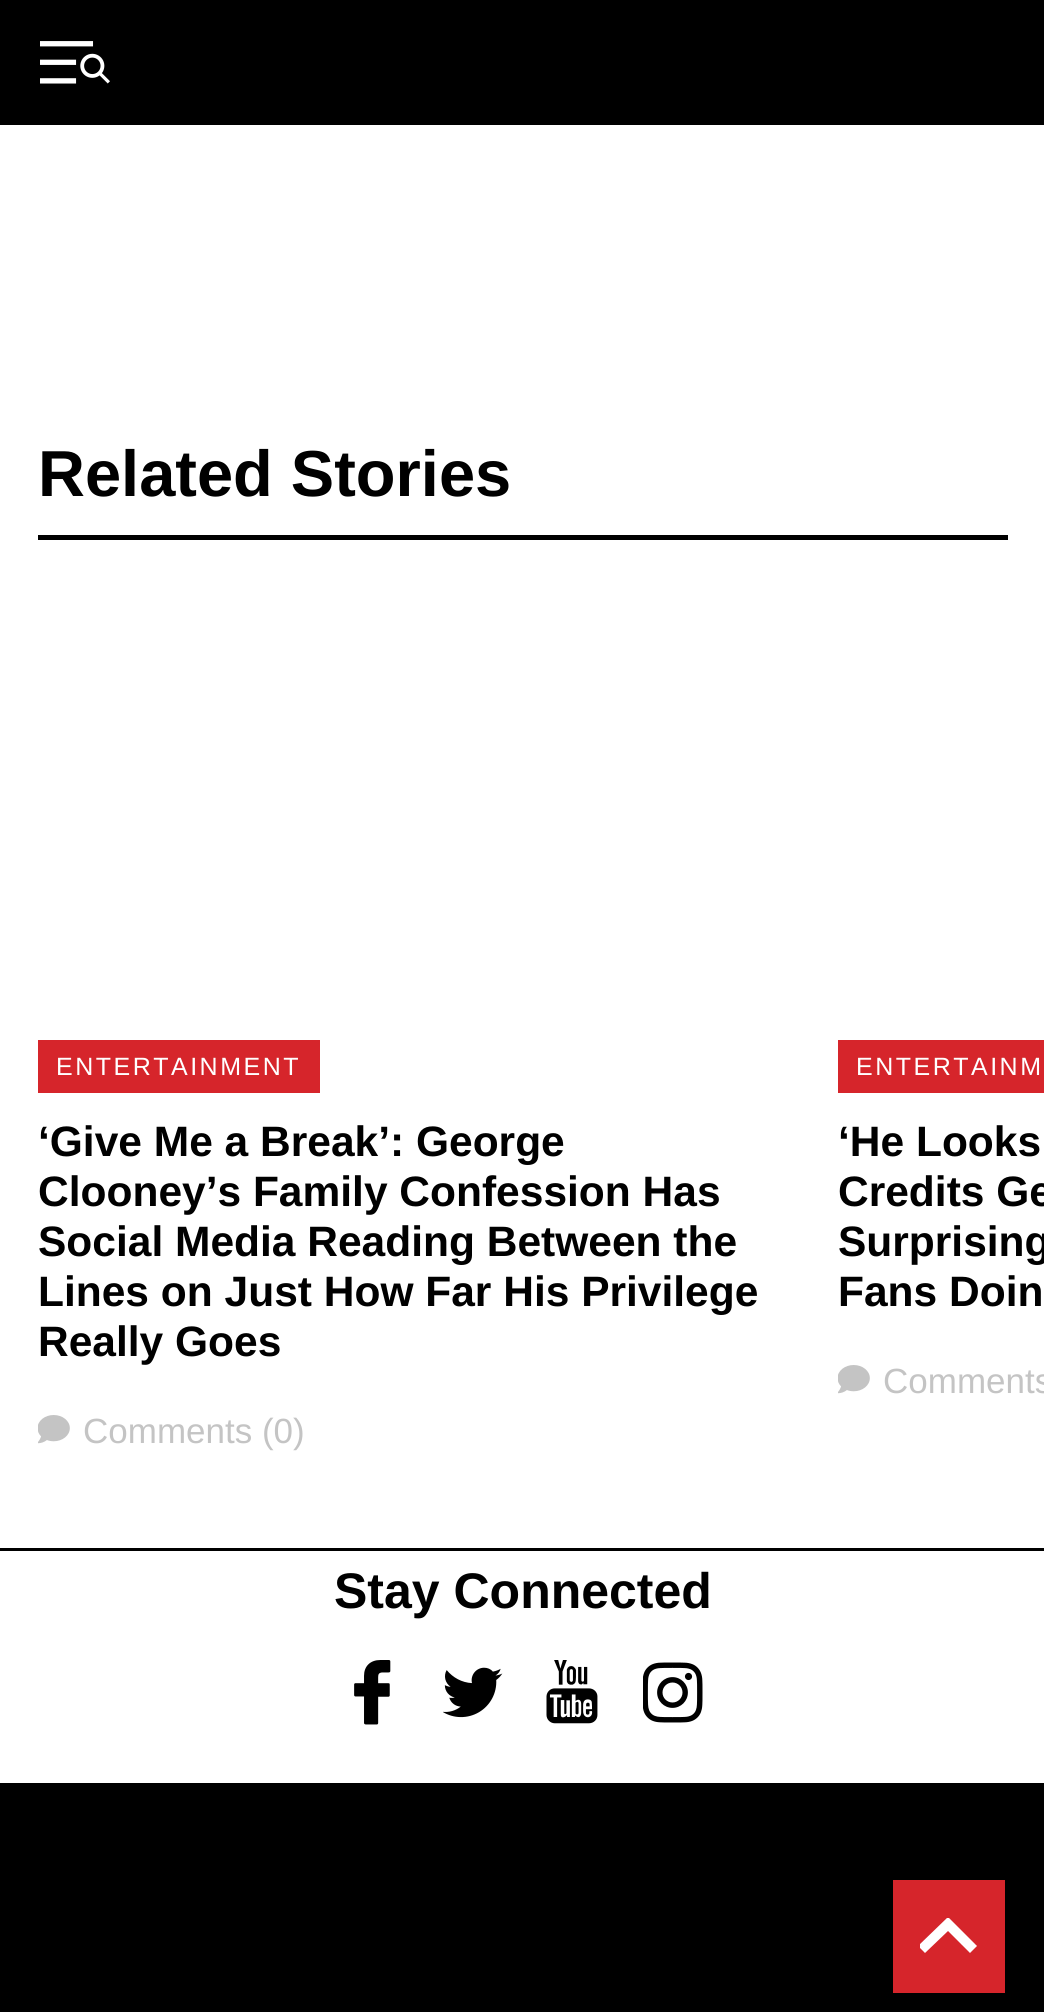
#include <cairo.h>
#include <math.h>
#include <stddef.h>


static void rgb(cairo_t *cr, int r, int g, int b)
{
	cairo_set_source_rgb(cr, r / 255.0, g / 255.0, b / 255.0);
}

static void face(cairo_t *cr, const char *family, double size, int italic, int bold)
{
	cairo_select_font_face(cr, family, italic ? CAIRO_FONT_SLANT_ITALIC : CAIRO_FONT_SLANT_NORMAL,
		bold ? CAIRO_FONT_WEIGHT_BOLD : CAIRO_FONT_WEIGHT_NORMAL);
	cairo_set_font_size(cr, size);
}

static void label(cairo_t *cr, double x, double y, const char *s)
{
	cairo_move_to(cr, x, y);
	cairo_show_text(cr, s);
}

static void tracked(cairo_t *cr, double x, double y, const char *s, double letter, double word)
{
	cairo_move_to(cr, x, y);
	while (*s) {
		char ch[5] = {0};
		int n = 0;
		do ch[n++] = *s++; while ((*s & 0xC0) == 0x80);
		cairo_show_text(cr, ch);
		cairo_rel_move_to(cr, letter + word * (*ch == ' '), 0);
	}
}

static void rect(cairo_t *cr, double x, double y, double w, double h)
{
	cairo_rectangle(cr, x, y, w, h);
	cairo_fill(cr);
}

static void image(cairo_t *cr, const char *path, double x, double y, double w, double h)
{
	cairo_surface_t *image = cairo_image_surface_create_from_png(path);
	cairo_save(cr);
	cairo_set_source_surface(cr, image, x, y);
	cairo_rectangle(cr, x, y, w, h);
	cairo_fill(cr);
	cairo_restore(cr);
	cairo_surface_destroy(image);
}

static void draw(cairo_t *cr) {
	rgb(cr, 255, 255, 255);
	cairo_paint(cr);
	rgb(cr, 0, 0, 0);
	rect(cr, 0, 0, 1044, 125);
	image(cr, "image0.png", 40, 41, 70, 43);
	face(cr, "Arimo", 65, 0, 1);
	label(cr, 38, 496, "Related Stories");
	rect(cr, 38, 535, 970, 5);
	rgb(cr, 214, 37, 43);
	rect(cr, 38, 1040, 282, 53);
	face(cr, "Arimo", 25, 0, 0);
	rgb(cr, 255, 255, 255);
	tracked(cr, 56, 1075, "ENTERTAINMENT", 2.5, 0);
	face(cr, "Arimo", 42.5, 0, 1);
	rgb(cr, 0, 0, 0);
	label(cr, 38, 1156, "‘Give Me a Break’: George");
	label(cr, 38, 1206, "Clooney’s Family Confession Has");
	label(cr, 38, 1256, "Social Media Reading Between the");
	label(cr, 38, 1306, "Lines on Just How Far His Privilege");
	label(cr, 38, 1356, "Really Goes");
	image(cr, "image1.png", 38, 1415, 32, 29);
	face(cr, "Arimo", 35, 0, 0);
	rgb(cr, 196, 196, 196);
	label(cr, 83, 1443, "Comments (0)");
	rgb(cr, 214, 37, 43);
	rect(cr, 838, 1040, 206, 53);
	face(cr, "Arimo", 25, 0, 0);
	rgb(cr, 255, 255, 255);
	tracked(cr, 856, 1075, "ENTERTAINM", 2.5, 0);
	face(cr, "Arimo", 42.5, 0, 1);
	rgb(cr, 0, 0, 0);
	label(cr, 838, 1156, "‘He Looks");
	label(cr, 838, 1206, "Credits Ge");
	label(cr, 838, 1256, "Surprising");
	label(cr, 838, 1306, "Fans Doin");
	image(cr, "image1.png", 838, 1365, 32, 29);
	face(cr, "Arimo", 35, 0, 0);
	rgb(cr, 196, 196, 196);
	label(cr, 883, 1393, "Comments");
	rgb(cr, 0, 0, 0);
	rect(cr, 0, 1783, 1044, 229);
	rect(cr, 0, 1548, 1044, 3);
	face(cr, "Arimo", 50, 0, 1);
	label(cr, 334, 1608, "Stay Connected");
	image(cr, "image2.png", 354, 1660, 37, 65);
	image(cr, "image3.png", 443, 1667, 60, 51);
	image(cr, "image4.png", 546, 1660, 52, 64);
	image(cr, "image5.png", 643, 1662, 60, 61);
	rgb(cr, 214, 37, 43);
	rect(cr, 893, 1880, 112, 113);
	cairo_save(cr);
	cairo_rectangle(cr, 920, 1918, 60, 37);
	cairo_clip(cr);
	rgb(cr, 255, 255, 255);
	cairo_new_path(cr);
	cairo_move_to(cr, 948, 1917);
	cairo_line_to(cr, 977, 1946);
	cairo_line_to(cr, 970, 1953);
	cairo_line_to(cr, 948, 1931);
	cairo_line_to(cr, 925, 1953);
	cairo_line_to(cr, 918, 1946);
	cairo_close_path(cr);
	cairo_fill(cr);
	cairo_restore(cr);
}

int main(void) {
	cairo_surface_t *surface = cairo_image_surface_create(CAIRO_FORMAT_RGB24, 1044, 2012);
	cairo_t *cr = cairo_create(surface);
	cairo_font_options_t *options = cairo_font_options_create();
	cairo_font_options_set_hint_metrics(options, CAIRO_HINT_METRICS_OFF);
	cairo_font_options_set_hint_style(options, CAIRO_HINT_STYLE_NONE);
	cairo_set_font_options(cr, options);
	cairo_set_miter_limit(cr, 4);
	draw(cr);
	cairo_surface_write_to_png(surface, "render.png");
	cairo_font_options_destroy(options);
	cairo_destroy(cr);
	cairo_surface_destroy(surface);
	return 0;
}
